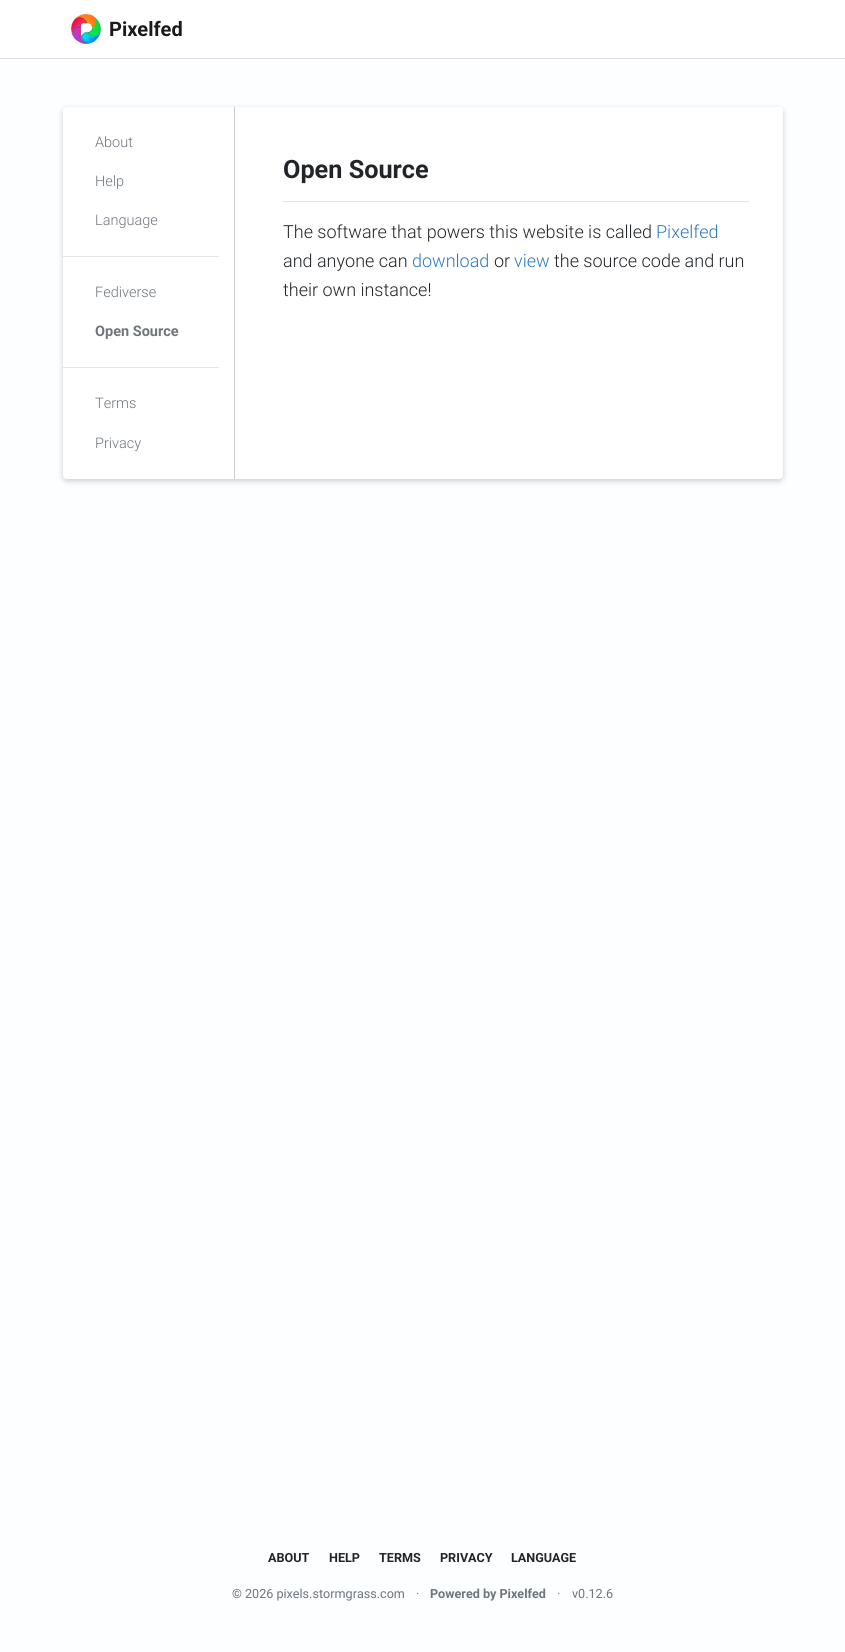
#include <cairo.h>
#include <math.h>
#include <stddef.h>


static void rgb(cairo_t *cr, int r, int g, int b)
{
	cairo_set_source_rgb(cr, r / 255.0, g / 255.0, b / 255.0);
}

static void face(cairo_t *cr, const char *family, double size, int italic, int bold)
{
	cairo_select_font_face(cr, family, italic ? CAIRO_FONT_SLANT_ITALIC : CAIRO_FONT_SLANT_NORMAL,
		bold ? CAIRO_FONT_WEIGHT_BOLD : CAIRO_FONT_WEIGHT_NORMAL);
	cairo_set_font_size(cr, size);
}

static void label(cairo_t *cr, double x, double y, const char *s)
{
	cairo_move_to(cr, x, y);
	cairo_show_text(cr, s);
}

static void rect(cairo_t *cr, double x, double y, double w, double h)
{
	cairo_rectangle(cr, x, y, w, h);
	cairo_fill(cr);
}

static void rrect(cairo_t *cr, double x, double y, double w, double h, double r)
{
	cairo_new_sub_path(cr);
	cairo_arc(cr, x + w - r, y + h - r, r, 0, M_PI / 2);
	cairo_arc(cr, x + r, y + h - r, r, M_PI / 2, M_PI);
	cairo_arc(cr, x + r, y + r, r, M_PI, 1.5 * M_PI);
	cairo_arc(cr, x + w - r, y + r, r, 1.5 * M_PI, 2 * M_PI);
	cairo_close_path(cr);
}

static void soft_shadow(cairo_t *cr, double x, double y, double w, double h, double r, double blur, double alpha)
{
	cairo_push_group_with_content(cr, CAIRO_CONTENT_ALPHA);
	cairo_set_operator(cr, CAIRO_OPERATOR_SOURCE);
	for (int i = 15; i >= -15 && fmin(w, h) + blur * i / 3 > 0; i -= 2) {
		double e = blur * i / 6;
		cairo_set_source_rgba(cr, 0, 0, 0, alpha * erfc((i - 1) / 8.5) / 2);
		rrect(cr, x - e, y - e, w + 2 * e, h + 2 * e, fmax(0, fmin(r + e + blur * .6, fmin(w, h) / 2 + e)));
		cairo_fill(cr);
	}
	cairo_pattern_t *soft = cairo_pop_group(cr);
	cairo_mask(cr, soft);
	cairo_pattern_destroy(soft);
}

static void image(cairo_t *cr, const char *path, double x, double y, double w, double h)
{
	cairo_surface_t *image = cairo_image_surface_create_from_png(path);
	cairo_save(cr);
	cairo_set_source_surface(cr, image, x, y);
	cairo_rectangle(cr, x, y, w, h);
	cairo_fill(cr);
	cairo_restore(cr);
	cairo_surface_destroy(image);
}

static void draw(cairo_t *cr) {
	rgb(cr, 252, 254, 255);
	cairo_paint(cr);
	rgb(cr, 255, 255, 255);
	rect(cr, 0, 0, 845, 58);
	rgb(cr, 222, 226, 230);
	rect(cr, 0, 58, 845, 1);
	image(cr, "image0.png", 71, 14, 30, 30);
	face(cr, "Roboto", 20, 0, 1);
	rgb(cr, 26, 26, 26);
	label(cr, 109, 36, "Pixelfed");
	rgb(cr, 0, 0, 0);
	soft_shadow(cr, 63, 109, 720, 372, 4, 3, 0.2);
	rgb(cr, 255, 255, 255);
	rrect(cr, 63, 107, 720, 372, 4);
	cairo_fill(cr);
	rgb(cr, 204, 204, 204);
	rect(cr, 234, 107, 1, 372);
	face(cr, "Roboto Light", 14.5, 0, 0);
	rgb(cr, 108, 117, 125);
	label(cr, 95, 147, "About");
	label(cr, 95, 186, "Help");
	label(cr, 95, 225, "Language");
	rgb(cr, 230, 230, 230);
	rect(cr, 63, 256, 156, 1);
	rgb(cr, 108, 117, 125);
	label(cr, 95, 297, "Fediverse");
	face(cr, "Roboto", 14.5, 0, 1);
	label(cr, 95, 336, "Open Source");
	rgb(cr, 230, 230, 230);
	rect(cr, 63, 367, 156, 1);
	face(cr, "Roboto Light", 14.5, 0, 0);
	rgb(cr, 108, 117, 125);
	label(cr, 95, 408, "Terms");
	label(cr, 95, 448, "Privacy");
	face(cr, "Roboto", 25.25, 0, 1);
	rgb(cr, 33, 37, 41);
	label(cr, 283, 178, "Open Source");
	rgb(cr, 230, 230, 230);
	rect(cr, 283, 201, 467, 1);
	face(cr, "Roboto Light", 18, 0, 0);
	rgb(cr, 33, 37, 41);
	label(cr, 283, 238, "The software that powers this website is called");
	rgb(cr, 44, 120, 191);
	label(cr, 656, 238, "Pixelfed");
	rgb(cr, 33, 37, 41);
	label(cr, 283, 267, "and anyone can");
	rgb(cr, 44, 120, 191);
	label(cr, 412, 267, "download");
	rgb(cr, 33, 37, 41);
	label(cr, 494, 267, "or");
	rgb(cr, 44, 120, 191);
	label(cr, 514, 267, "view");
	rgb(cr, 33, 37, 41);
	label(cr, 554, 267, "the source code and run");
	label(cr, 283, 296, "their own instance!");
	face(cr, "Roboto", 12.6, 0, 1);
	label(cr, 268, 1562, "ABOUT");
	label(cr, 329, 1562, "HELP");
	label(cr, 379, 1562, "TERMS");
	label(cr, 440, 1562, "PRIVACY");
	label(cr, 511, 1562, "LANGUAGE");
	face(cr, "Roboto", 12.6, 0, 0);
	rgb(cr, 108, 117, 125);
	label(cr, 232, 1598, "© 2026 pixels.stormgrass.com");
	label(cr, 416, 1598, "·");
	face(cr, "Roboto", 12.6, 0, 1);
	label(cr, 430, 1598, "Powered by Pixelfed");
	face(cr, "Roboto", 12.6, 0, 0);
	label(cr, 557, 1598, "·");
	label(cr, 572, 1598, "v0.12.6");
}

int main(void) {
	cairo_surface_t *surface = cairo_image_surface_create(CAIRO_FORMAT_RGB24, 845, 1652);
	cairo_t *cr = cairo_create(surface);
	cairo_font_options_t *options = cairo_font_options_create();
	cairo_font_options_set_hint_metrics(options, CAIRO_HINT_METRICS_OFF);
	cairo_font_options_set_hint_style(options, CAIRO_HINT_STYLE_NONE);
	cairo_set_font_options(cr, options);
	cairo_set_miter_limit(cr, 4);
	draw(cr);
	cairo_surface_write_to_png(surface, "render.png");
	cairo_font_options_destroy(options);
	cairo_destroy(cr);
	cairo_surface_destroy(surface);
	return 0;
}
